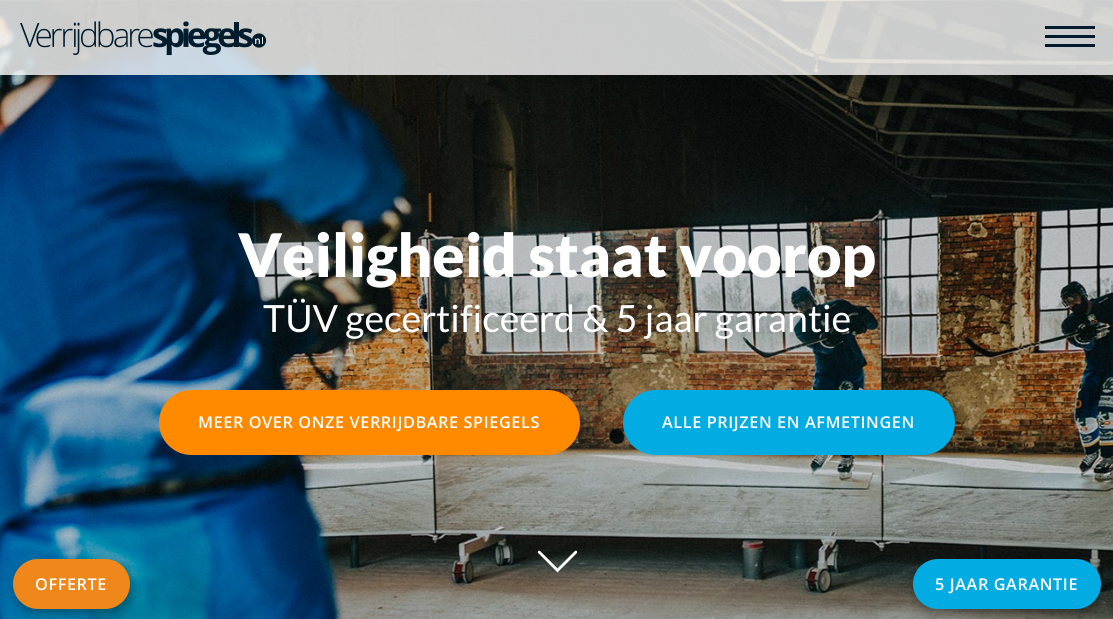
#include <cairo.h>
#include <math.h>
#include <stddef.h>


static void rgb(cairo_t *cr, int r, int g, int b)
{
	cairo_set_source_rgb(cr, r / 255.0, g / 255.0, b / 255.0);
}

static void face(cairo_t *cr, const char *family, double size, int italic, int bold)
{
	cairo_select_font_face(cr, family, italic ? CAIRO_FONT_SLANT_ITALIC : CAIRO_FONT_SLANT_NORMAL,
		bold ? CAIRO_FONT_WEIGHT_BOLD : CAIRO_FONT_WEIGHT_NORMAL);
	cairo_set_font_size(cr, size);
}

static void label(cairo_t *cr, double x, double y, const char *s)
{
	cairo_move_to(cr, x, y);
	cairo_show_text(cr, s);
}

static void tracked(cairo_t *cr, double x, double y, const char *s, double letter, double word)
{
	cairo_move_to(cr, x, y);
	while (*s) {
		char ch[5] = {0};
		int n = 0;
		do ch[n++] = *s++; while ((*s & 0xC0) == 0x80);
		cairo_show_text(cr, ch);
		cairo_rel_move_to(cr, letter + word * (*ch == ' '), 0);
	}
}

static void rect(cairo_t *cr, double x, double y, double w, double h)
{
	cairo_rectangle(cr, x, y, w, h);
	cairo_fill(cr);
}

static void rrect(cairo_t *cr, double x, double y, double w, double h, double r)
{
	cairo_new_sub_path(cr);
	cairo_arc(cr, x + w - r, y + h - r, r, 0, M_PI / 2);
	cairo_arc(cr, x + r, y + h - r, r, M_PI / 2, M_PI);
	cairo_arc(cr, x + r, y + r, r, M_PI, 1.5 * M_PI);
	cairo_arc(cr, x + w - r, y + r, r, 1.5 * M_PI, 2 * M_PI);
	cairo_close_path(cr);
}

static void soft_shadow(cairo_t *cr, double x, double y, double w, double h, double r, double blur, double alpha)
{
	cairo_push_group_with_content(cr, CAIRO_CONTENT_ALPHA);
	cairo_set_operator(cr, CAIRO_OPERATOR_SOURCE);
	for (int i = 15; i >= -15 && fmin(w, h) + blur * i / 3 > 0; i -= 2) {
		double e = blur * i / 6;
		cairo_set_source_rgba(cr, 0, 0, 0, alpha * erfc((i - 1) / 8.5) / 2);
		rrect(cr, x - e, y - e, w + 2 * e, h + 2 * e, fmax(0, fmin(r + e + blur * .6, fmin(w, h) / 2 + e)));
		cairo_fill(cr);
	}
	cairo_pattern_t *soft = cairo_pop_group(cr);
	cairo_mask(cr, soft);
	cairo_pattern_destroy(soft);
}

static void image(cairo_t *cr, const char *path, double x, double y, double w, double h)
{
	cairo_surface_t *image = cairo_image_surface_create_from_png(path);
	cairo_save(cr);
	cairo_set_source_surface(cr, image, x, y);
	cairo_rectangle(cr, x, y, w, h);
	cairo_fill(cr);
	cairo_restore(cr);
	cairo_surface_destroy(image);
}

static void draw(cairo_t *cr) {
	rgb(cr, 255, 255, 255);
	cairo_paint(cr);
	image(cr, "image1.png", 0, 0, 1113, 619);
	cairo_set_source_rgba(cr, 0.012, 0.043, 0.059, 0.1);
	rect(cr, 0, 74, 1113, 1);
	cairo_set_source_rgba(cr, 1, 1, 1, 0.79);
	rect(cr, 0, 0, 1113, 75);
	image(cr, "image0.png", 20, 21, 247, 35);
	rgb(cr, 0, 28, 44);
	rect(cr, 1045, 35, 50, 3);
	rect(cr, 1045, 26, 50, 3);
	rect(cr, 1045, 44, 50, 3);
	face(cr, "Lato Black", 60, 0, 0);
	rgb(cr, 255, 255, 255);
	label(cr, 238, 277, "Veiligheid staat voorop");
	face(cr, "Lato", 37.5, 0, 0);
	label(cr, 263, 332, "TÜV gecertificeerd & 5 jaar garantie");
	rgb(cr, 255, 138, 0);
	rrect(cr, 159, 390, 421, 65, 32.5);
	cairo_fill(cr);
	face(cr, "Open Sans SemiBold", 16.25, 0, 0);
	rgb(cr, 255, 255, 255);
	tracked(cr, 198, 428, "MEER OVER ONZE VERRIJDBARE SPIEGELS", 0.6, 0);
	rgb(cr, 2, 172, 227);
	rrect(cr, 623, 390, 332, 65, 32.5);
	cairo_fill(cr);
	rgb(cr, 255, 255, 255);
	tracked(cr, 662, 428, "ALLE PRIJZEN EN AFMETINGEN", 0.6, 0);
	image(cr, "image2.png", 537, 550, 41, 23);
	rgb(cr, 0, 0, 0);
	soft_shadow(cr, 15, 564, 118, 50, 25, 5, 0.31);
	rgb(cr, 240, 135, 26);
	rrect(cr, 13, 559, 117, 50, 25);
	cairo_fill(cr);
	rgb(cr, 255, 255, 255);
	tracked(cr, 35, 590, "OFFERTE", 0.6, 0);
	rgb(cr, 0, 0, 0);
	soft_shadow(cr, 915, 564, 189, 50, 25, 5, 0.31);
	rgb(cr, 2, 172, 227);
	rrect(cr, 913, 559, 188, 50, 25);
	cairo_fill(cr);
	rgb(cr, 255, 255, 255);
	tracked(cr, 935, 590, "5 JAAR GARANTIE", 0.6, 0);
}

int main(void) {
	cairo_surface_t *surface = cairo_image_surface_create(CAIRO_FORMAT_RGB24, 1113, 619);
	cairo_t *cr = cairo_create(surface);
	cairo_font_options_t *options = cairo_font_options_create();
	cairo_font_options_set_hint_metrics(options, CAIRO_HINT_METRICS_OFF);
	cairo_font_options_set_hint_style(options, CAIRO_HINT_STYLE_NONE);
	cairo_set_font_options(cr, options);
	cairo_set_miter_limit(cr, 4);
	draw(cr);
	cairo_surface_write_to_png(surface, "render.png");
	cairo_font_options_destroy(options);
	cairo_destroy(cr);
	cairo_surface_destroy(surface);
	return 0;
}
